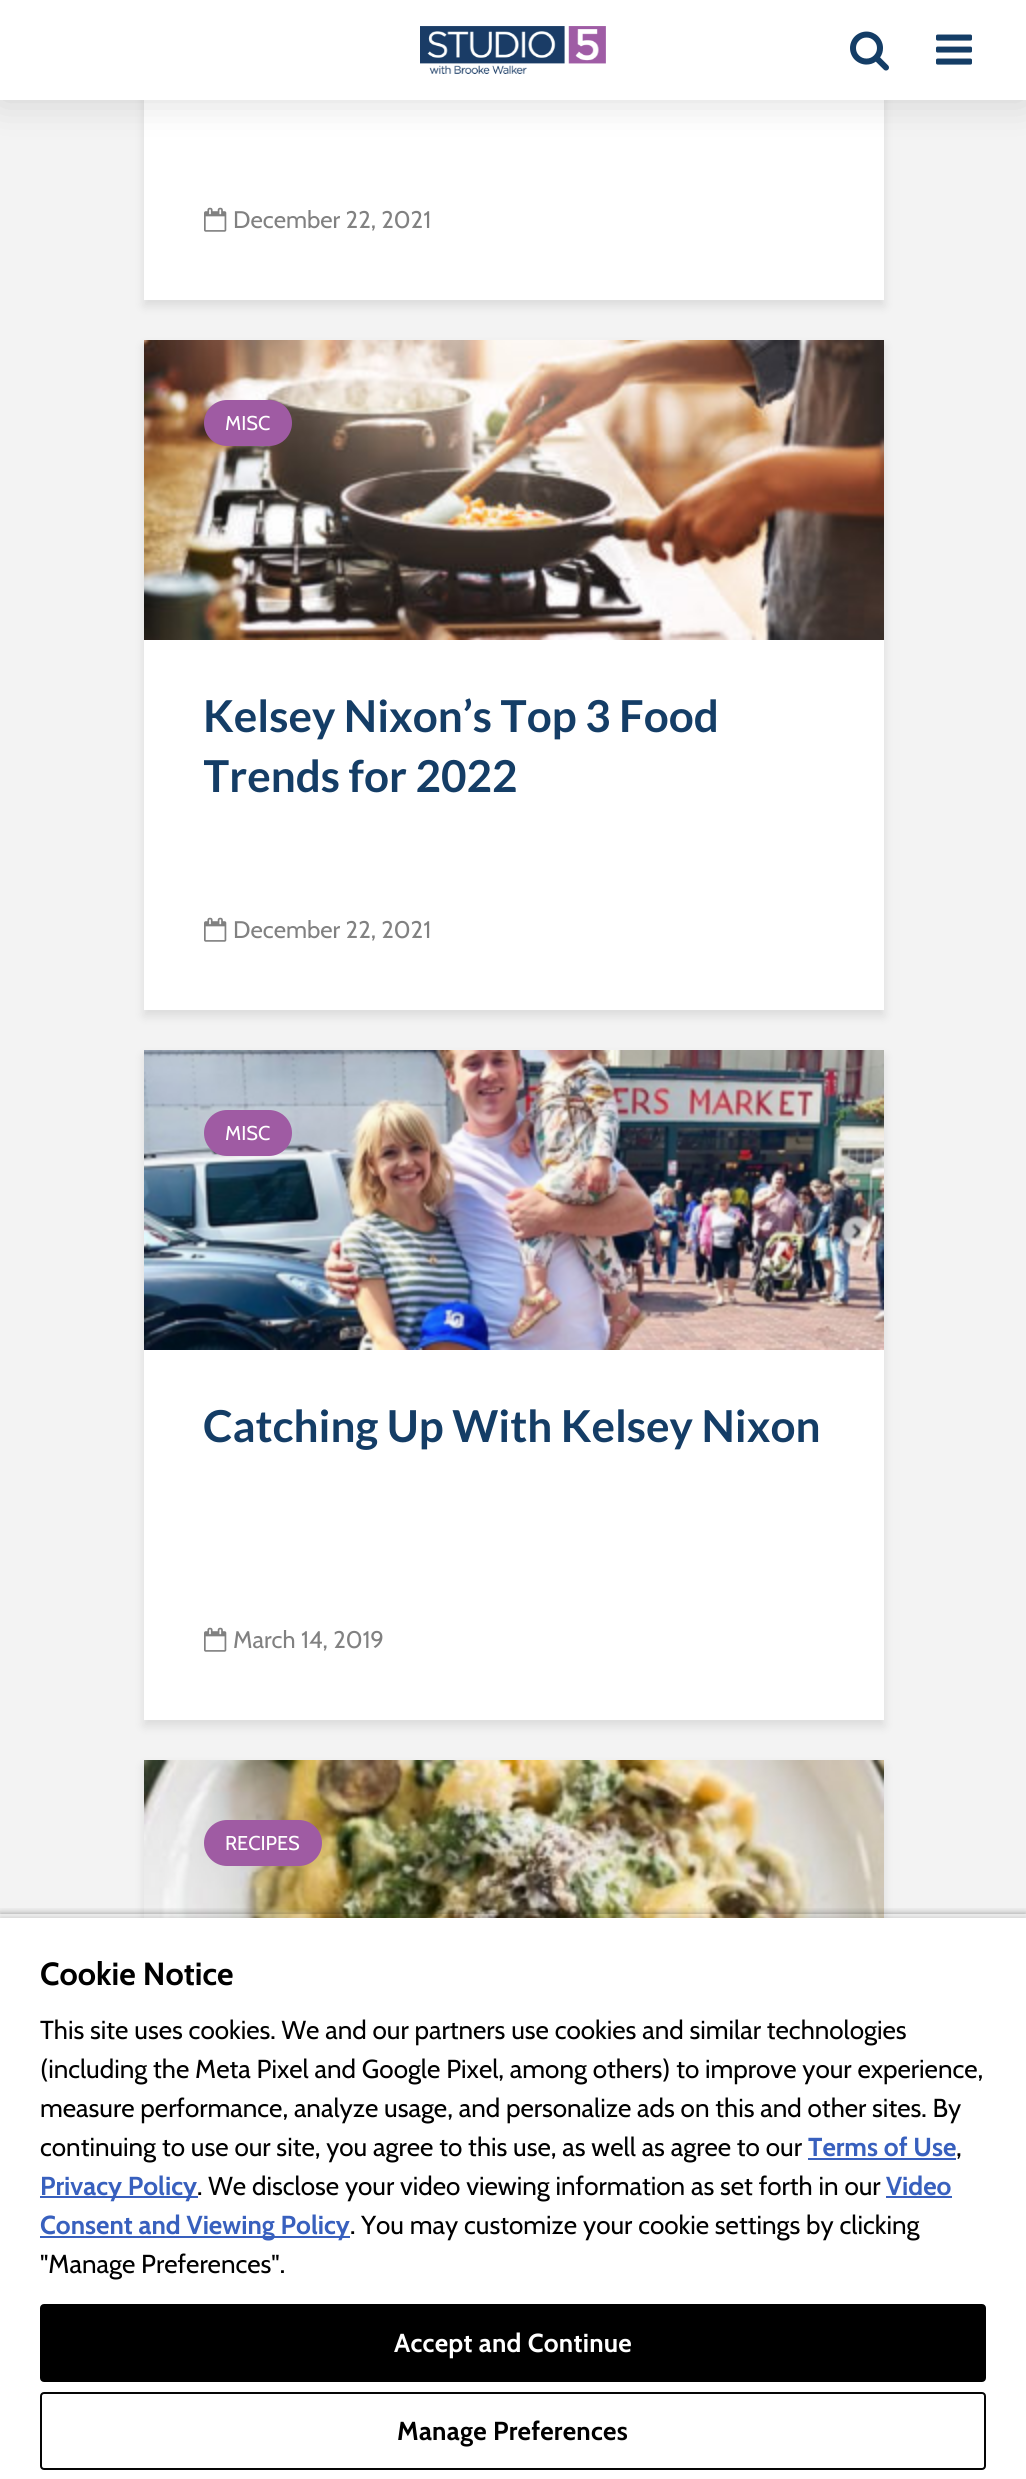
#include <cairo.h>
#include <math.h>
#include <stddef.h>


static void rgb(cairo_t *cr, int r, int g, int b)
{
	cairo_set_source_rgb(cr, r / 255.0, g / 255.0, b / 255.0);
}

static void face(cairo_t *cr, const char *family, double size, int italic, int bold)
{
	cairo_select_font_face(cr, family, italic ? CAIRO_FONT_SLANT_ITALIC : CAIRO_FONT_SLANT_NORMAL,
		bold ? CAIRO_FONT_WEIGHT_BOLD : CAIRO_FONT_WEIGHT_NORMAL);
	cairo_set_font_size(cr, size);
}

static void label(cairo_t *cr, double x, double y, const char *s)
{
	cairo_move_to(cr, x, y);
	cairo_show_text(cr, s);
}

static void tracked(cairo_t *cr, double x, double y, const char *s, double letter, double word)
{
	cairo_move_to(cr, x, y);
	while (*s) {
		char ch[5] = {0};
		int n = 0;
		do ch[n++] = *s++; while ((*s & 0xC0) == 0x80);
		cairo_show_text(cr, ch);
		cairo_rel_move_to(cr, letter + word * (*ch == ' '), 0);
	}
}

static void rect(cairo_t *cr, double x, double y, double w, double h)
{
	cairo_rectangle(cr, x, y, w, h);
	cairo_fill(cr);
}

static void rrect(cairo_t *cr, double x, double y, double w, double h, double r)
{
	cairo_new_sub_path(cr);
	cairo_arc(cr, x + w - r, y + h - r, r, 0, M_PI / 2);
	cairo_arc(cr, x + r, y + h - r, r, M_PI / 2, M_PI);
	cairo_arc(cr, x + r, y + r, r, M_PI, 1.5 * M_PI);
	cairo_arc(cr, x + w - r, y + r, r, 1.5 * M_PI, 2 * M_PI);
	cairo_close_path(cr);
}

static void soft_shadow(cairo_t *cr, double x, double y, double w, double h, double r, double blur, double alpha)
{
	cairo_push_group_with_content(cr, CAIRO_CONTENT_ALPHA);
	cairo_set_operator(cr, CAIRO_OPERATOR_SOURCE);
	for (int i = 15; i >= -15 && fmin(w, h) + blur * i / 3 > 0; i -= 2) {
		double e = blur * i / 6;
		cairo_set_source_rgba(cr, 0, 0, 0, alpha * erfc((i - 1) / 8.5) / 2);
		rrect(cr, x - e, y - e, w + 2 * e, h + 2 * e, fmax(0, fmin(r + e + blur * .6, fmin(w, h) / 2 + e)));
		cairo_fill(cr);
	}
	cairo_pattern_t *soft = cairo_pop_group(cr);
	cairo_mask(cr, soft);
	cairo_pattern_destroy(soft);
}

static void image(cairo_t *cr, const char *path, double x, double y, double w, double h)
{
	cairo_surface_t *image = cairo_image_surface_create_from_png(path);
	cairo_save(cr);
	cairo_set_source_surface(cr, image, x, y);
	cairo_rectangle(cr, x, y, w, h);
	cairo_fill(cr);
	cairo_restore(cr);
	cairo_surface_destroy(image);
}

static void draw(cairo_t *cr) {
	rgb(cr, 243, 243, 243);
	cairo_paint(cr);
	rgb(cr, 0, 1, 1);
	soft_shadow(cr, 144, -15, 740, 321, 0, 5, 0.1);
	rgb(cr, 255, 255, 255);
	rect(cr, 144, 100, 740, 200);
	rgb(cr, 0, 0, 0);
	soft_shadow(cr, 0, 0, 1026, 100, 0, 20, 0.15);
	rgb(cr, 255, 255, 255);
	rect(cr, 0, 0, 1026, 100);
	image(cr, "image0.png", 420, 26, 186, 48);
	image(cr, "image1.png", 850, 31, 39, 40);
	image(cr, "image2.png", 936, 34, 36, 31);
	image(cr, "image3.png", 204, 207, 23, 25);
	face(cr, "Cabin", 24, 0, 0);
	rgb(cr, 129, 129, 129);
	label(cr, 233, 228, "December 22, 2021");
	rgb(cr, 0, 1, 1);
	soft_shadow(cr, 144, 346, 740, 670, 0, 5, 0.1);
	rgb(cr, 255, 255, 255);
	rect(cr, 144, 640, 740, 370);
	image(cr, "image4.png", 144, 340, 740, 300);
	rgb(cr, 159, 91, 163);
	rrect(cr, 204, 400, 88, 46, 23);
	cairo_fill(cr);
	face(cr, "Cabin", 20, 0, 0);
	rgb(cr, 255, 255, 255);
	label(cr, 225, 430, "MISC");
	face(cr, "Lato", 44, 0, 1);
	rgb(cr, 20, 61, 102);
	label(cr, 203, 732, "Kelsey Nixon’s Top 3 Food");
	cairo_save(cr);
	cairo_rectangle(cr, 204, 686, 620, 180);
	cairo_clip(cr);
	label(cr, 203, 792, "Trends for 2022");
	cairo_restore(cr);
	image(cr, "image3.png", 204, 917, 23, 25);
	face(cr, "Cabin", 24, 0, 0);
	rgb(cr, 129, 129, 129);
	label(cr, 233, 938, "December 22, 2021");
	rgb(cr, 0, 1, 1);
	soft_shadow(cr, 144, 1056, 740, 670, 0, 5, 0.1);
	rgb(cr, 255, 255, 255);
	rect(cr, 144, 1350, 740, 370);
	image(cr, "image5.png", 144, 1050, 740, 300);
	rgb(cr, 159, 91, 163);
	rrect(cr, 204, 1110, 88, 46, 23);
	cairo_fill(cr);
	face(cr, "Cabin", 20, 0, 0);
	rgb(cr, 255, 255, 255);
	label(cr, 225, 1140, "MISC");
	face(cr, "Lato", 44, 0, 1);
	rgb(cr, 20, 61, 102);
	label(cr, 203, 1442, "Catching Up With Kelsey Nixon");
	image(cr, "image3.png", 204, 1627, 23, 25);
	face(cr, "Cabin", 24, 0, 0);
	rgb(cr, 129, 129, 129);
	label(cr, 233, 1648, "March 14, 2019");
	rgb(cr, 0, 1, 1);
	soft_shadow(cr, 144, 1766, 740, 670, 0, 5, 0.1);
	image(cr, "image6.png", 144, 1760, 740, 158);
	rgb(cr, 159, 91, 163);
	rrect(cr, 204, 1820, 118, 46, 23);
	cairo_fill(cr);
	face(cr, "Cabin", 20, 0, 0);
	rgb(cr, 255, 255, 255);
	label(cr, 225, 1850, "RECIPES");
	cairo_save(cr);
	cairo_rectangle(cr, 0, 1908, 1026, 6);
	cairo_clip(cr);
	rgb(cr, 0, 0, 0);
	soft_shadow(cr, 0, 1914, 1026, 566, 0, 4, 0.35);
	cairo_restore(cr);
	rgb(cr, 0, 0, 0);
	soft_shadow(cr, 0, 1918, 1026, 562, 0, 4, 0.2);
	rgb(cr, 255, 255, 255);
	rect(cr, 0, 1918, 1026, 561);
	face(cr, "Cabin", 32, 0, 1);
	rgb(cr, 0, 0, 0);
	label(cr, 40, 1985, "Cookie Notice");
	face(cr, "Cabin", 26, 0, 0);
	label(cr, 40, 2039, "This site uses cookies. We and our partners use cookies and similar technologies");
	label(cr, 40, 2078, "(including the Meta Pixel and Google Pixel, among others) to improve your experience,");
	label(cr, 40, 2117, "measure performance, analyze usage, and personalize ads on this and other sites. By");
	label(cr, 40, 2156, "continuing to use our site, you agree to this use, as well as agree to our");
	face(cr, "Cabin", 26, 0, 1);
	rgb(cr, 56, 96, 190);
	label(cr, 808, 2156, "Terms of Use");
	rect(cr, 808, 2158, 148, 2);
	face(cr, "Cabin", 26, 0, 0);
	rgb(cr, 0, 0, 0);
	label(cr, 956, 2156, ",");
	rgb(cr, 56, 96, 190);
	rect(cr, 40, 2196, 158, 2);
	face(cr, "Cabin", 26, 0, 1);
	label(cr, 40, 2195, "Privacy Policy");
	face(cr, "Cabin", 26, 0, 0);
	rgb(cr, 0, 0, 0);
	label(cr, 197, 2195, ". We disclose your video viewing information as set forth in our");
	face(cr, "Cabin", 26, 0, 1);
	rgb(cr, 56, 96, 190);
	label(cr, 886, 2195, "Video");
	rect(cr, 886, 2196, 66, 2);
	rect(cr, 40, 2236, 310, 2);
	label(cr, 40, 2234, "Consent and Viewing Policy");
	face(cr, "Cabin", 26, 0, 0);
	rgb(cr, 0, 0, 0);
	label(cr, 350, 2234, ". You may customize your cookie settings by clicking");
	label(cr, 40, 2273, "\"Manage Preferences\".");
	rrect(cr, 41, 2305, 944, 76, 3);
	cairo_fill_preserve(cr);
	cairo_stroke(cr);
	face(cr, "Cabin", 26, 0, 1);
	rgb(cr, 255, 255, 255);
	tracked(cr, 394, 2352, "Accept and Continue", 0.25, 0);
	rrect(cr, 41, 2393, 944, 76, 3);
	rgb(cr, 5, 5, 5);
	cairo_stroke(cr);
	rgb(cr, 0, 0, 0);
	tracked(cr, 397, 2440, "Manage Preferences", 0.25, 0);
}

int main(void) {
	cairo_surface_t *surface = cairo_image_surface_create(CAIRO_FORMAT_RGB24, 1026, 2479);
	cairo_t *cr = cairo_create(surface);
	cairo_font_options_t *options = cairo_font_options_create();
	cairo_font_options_set_hint_metrics(options, CAIRO_HINT_METRICS_OFF);
	cairo_font_options_set_hint_style(options, CAIRO_HINT_STYLE_NONE);
	cairo_set_font_options(cr, options);
	cairo_set_miter_limit(cr, 4);
	draw(cr);
	cairo_surface_write_to_png(surface, "render.png");
	cairo_font_options_destroy(options);
	cairo_destroy(cr);
	cairo_surface_destroy(surface);
	return 0;
}
